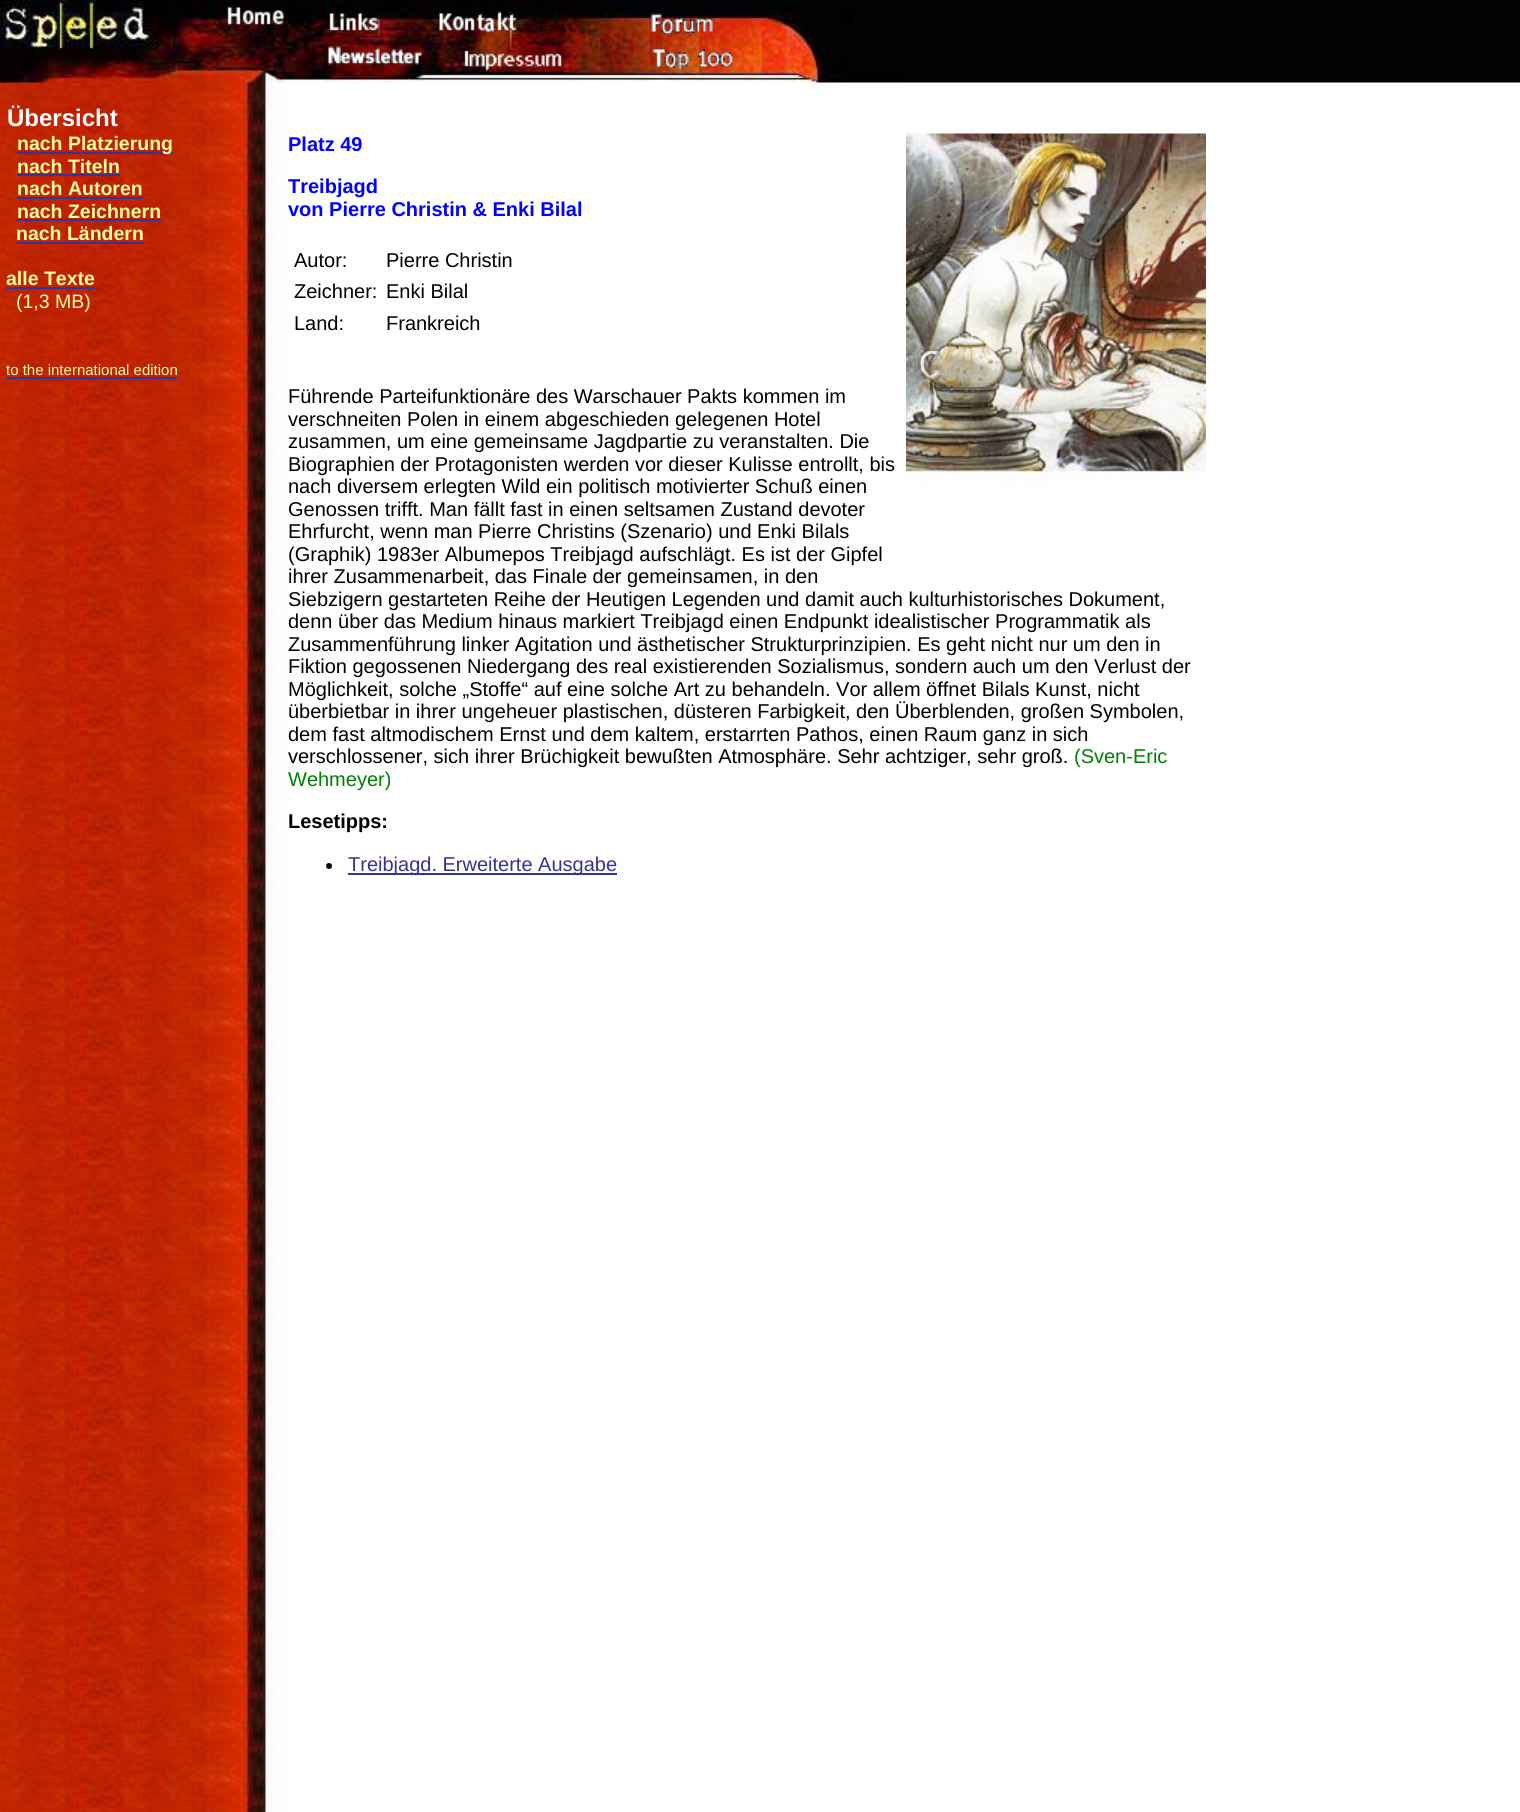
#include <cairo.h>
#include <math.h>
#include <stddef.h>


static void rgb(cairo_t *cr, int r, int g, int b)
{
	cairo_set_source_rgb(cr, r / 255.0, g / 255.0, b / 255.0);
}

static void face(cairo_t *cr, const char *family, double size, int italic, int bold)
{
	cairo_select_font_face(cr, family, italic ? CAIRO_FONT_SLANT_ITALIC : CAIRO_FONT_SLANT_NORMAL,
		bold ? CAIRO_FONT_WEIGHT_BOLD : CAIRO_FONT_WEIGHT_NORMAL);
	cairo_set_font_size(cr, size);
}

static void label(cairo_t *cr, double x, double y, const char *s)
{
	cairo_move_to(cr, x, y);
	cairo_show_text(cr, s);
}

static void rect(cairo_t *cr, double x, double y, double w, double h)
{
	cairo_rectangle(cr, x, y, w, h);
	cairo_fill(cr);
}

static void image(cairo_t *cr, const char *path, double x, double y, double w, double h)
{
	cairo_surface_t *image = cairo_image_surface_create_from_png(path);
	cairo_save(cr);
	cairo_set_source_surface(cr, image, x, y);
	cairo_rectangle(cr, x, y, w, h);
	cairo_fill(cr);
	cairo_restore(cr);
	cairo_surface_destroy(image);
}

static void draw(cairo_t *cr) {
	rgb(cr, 255, 255, 255);
	cairo_paint(cr);
	image(cr, "image0.png", 0, 82, 287, 1730);
	image(cr, "image1.png", 0, 0, 1520, 83);
	image(cr, "image2.png", 227, 7, 57, 18);
	image(cr, "image3.png", 329, 12, 50, 19);
	image(cr, "image4.png", 439, 11, 78, 21);
	image(cr, "image5.png", 650, 13, 63, 22);
	image(cr, "image6.png", 328, 46, 94, 19);
	image(cr, "image7.png", 464, 50, 98, 21);
	image(cr, "image8.png", 652, 49, 81, 22);
	face(cr, "Liberation Sans", 24, 0, 1);
	rgb(cr, 255, 255, 255);
	label(cr, 7, 126, "Übersicht");
	rgb(cr, 51, 51, 153);
	rect(cr, 17, 152, 156, 2);
	face(cr, "Liberation Sans", 19.5, 0, 1);
	rgb(cr, 255, 255, 153);
	label(cr, 17, 150, "nach Platzierung");
	label(cr, 17, 173, "nach Titeln");
	rgb(cr, 51, 51, 153);
	rect(cr, 17, 174, 103, 2);
	rgb(cr, 255, 255, 153);
	label(cr, 17, 195, "nach Autoren");
	rgb(cr, 51, 51, 153);
	rect(cr, 17, 197, 126, 2);
	rgb(cr, 255, 255, 153);
	label(cr, 17, 218, "nach Zeichnern");
	rgb(cr, 51, 51, 153);
	rect(cr, 17, 219, 144, 2);
	rgb(cr, 255, 255, 153);
	label(cr, 16, 240, "nach Ländern");
	rgb(cr, 51, 51, 153);
	rect(cr, 17, 242, 127, 2);
	rgb(cr, 255, 255, 153);
	label(cr, 6, 285, "alle Texte");
	rgb(cr, 51, 51, 153);
	rect(cr, 6, 287, 89, 2);
	face(cr, "Liberation Sans", 19.5, 0, 0);
	rgb(cr, 255, 255, 153);
	label(cr, 16, 308, "(1,3 MB)");
	face(cr, "Liberation Sans", 15, 0, 0);
	label(cr, 6, 375, "to the international edition");
	rgb(cr, 51, 51, 153);
	rect(cr, 6, 377, 171, 2);
	face(cr, "Liberation Sans", 20, 0, 1);
	rgb(cr, 0, 0, 255);
	label(cr, 288, 151, "Platz 49");
	image(cr, "image9.png", 906, 133, 300, 355);
	label(cr, 288, 193, "Treibjagd");
	label(cr, 288, 216, "von Pierre Christin & Enki Bilal");
	face(cr, "Liberation Sans", 20, 0, 0);
	rgb(cr, 0, 0, 0);
	label(cr, 294, 267, "Autor:");
	label(cr, 386, 267, "Pierre Christin");
	label(cr, 294, 298, "Zeichner:");
	label(cr, 386, 298, "Enki Bilal");
	label(cr, 294, 330, "Land:");
	label(cr, 386, 330, "Frankreich");
	label(cr, 288, 403, "Führende Parteifunktionäre des Warschauer Pakts kommen im");
	label(cr, 288, 426, "verschneiten Polen in einem abgeschieden gelegenen Hotel");
	label(cr, 288, 448, "zusammen, um eine gemeinsame Jagdpartie zu veranstalten. Die");
	label(cr, 288, 471, "Biographien der Protagonisten werden vor dieser Kulisse entrollt, bis");
	label(cr, 288, 493, "nach diversem erlegten Wild ein politisch motivierter Schuß einen");
	label(cr, 288, 516, "Genossen trifft. Man fällt fast in einen seltsamen Zustand devoter");
	label(cr, 288, 538, "Ehrfurcht, wenn man Pierre Christins (Szenario) und Enki Bilals");
	label(cr, 288, 561, "(Graphik) 1983er Albumepos Treibjagd aufschlägt. Es ist der Gipfel");
	label(cr, 288, 583, "ihrer Zusammenarbeit, das Finale der gemeinsamen, in den");
	label(cr, 288, 606, "Siebzigern gestarteten Reihe der Heutigen Legenden und damit auch kulturhistorisches Dokument,");
	label(cr, 288, 628, "denn über das Medium hinaus markiert Treibjagd einen Endpunkt idealistischer Programmatik als");
	label(cr, 288, 651, "Zusammenführung linker Agitation und ästhetischer Strukturprinzipien. Es geht nicht nur um den in");
	label(cr, 288, 673, "Fiktion gegossenen Niedergang des real existierenden Sozialismus, sondern auch um den Verlust der");
	label(cr, 288, 696, "Möglichkeit, solche „Stoffe“ auf eine solche Art zu behandeln. Vor allem öffnet Bilals Kunst, nicht");
	label(cr, 288, 718, "überbietbar in ihrer ungeheuer plastischen, düsteren Farbigkeit, den Überblenden, großen Symbolen,");
	label(cr, 288, 741, "dem fast altmodischem Ernst und dem kaltem, erstarrten Pathos, einen Raum ganz in sich");
	label(cr, 288, 763, "verschlossener, sich ihrer Brüchigkeit bewußten Atmosphäre. Sehr achtziger, sehr groß.");
	rgb(cr, 0, 128, 0);
	label(cr, 1074, 763, "(Sven-Eric");
	label(cr, 288, 786, "Wehmeyer)");
	face(cr, "Liberation Sans", 20, 0, 1);
	rgb(cr, 0, 0, 0);
	label(cr, 288, 828, "Lesetipps:");
	cairo_new_path(cr);
	cairo_arc(cr, 329, 866, 3, 0, 2 * M_PI);
	cairo_fill(cr);
	rgb(cr, 51, 51, 153);
	rect(cr, 348, 873, 269, 2);
	face(cr, "Liberation Sans", 20, 0, 0);
	label(cr, 348, 871, "Treibjagd. Erweiterte Ausgabe");
}

int main(void) {
	cairo_surface_t *surface = cairo_image_surface_create(CAIRO_FORMAT_RGB24, 1520, 1812);
	cairo_t *cr = cairo_create(surface);
	cairo_font_options_t *options = cairo_font_options_create();
	cairo_font_options_set_hint_metrics(options, CAIRO_HINT_METRICS_OFF);
	cairo_font_options_set_hint_style(options, CAIRO_HINT_STYLE_NONE);
	cairo_set_font_options(cr, options);
	cairo_set_miter_limit(cr, 4);
	draw(cr);
	cairo_surface_write_to_png(surface, "render.png");
	cairo_font_options_destroy(options);
	cairo_destroy(cr);
	cairo_surface_destroy(surface);
	return 0;
}
